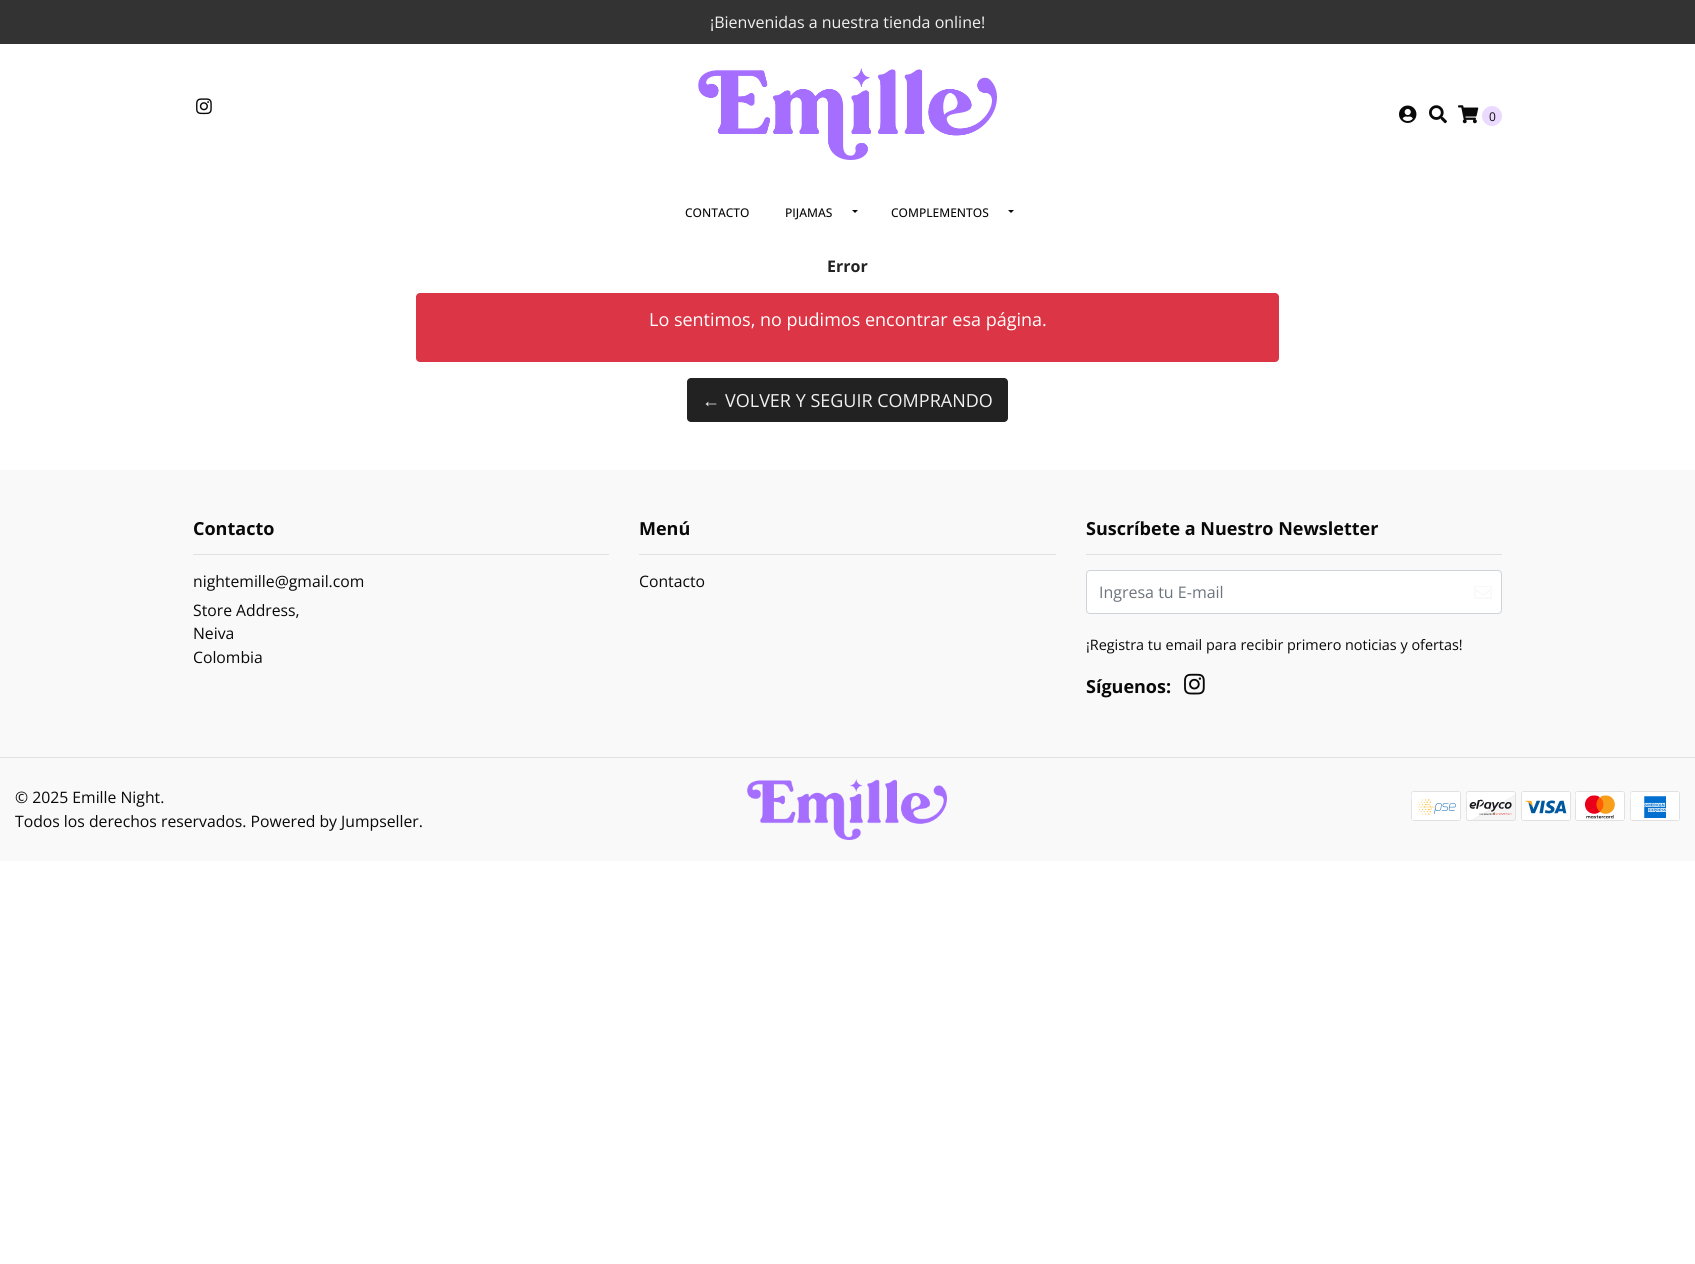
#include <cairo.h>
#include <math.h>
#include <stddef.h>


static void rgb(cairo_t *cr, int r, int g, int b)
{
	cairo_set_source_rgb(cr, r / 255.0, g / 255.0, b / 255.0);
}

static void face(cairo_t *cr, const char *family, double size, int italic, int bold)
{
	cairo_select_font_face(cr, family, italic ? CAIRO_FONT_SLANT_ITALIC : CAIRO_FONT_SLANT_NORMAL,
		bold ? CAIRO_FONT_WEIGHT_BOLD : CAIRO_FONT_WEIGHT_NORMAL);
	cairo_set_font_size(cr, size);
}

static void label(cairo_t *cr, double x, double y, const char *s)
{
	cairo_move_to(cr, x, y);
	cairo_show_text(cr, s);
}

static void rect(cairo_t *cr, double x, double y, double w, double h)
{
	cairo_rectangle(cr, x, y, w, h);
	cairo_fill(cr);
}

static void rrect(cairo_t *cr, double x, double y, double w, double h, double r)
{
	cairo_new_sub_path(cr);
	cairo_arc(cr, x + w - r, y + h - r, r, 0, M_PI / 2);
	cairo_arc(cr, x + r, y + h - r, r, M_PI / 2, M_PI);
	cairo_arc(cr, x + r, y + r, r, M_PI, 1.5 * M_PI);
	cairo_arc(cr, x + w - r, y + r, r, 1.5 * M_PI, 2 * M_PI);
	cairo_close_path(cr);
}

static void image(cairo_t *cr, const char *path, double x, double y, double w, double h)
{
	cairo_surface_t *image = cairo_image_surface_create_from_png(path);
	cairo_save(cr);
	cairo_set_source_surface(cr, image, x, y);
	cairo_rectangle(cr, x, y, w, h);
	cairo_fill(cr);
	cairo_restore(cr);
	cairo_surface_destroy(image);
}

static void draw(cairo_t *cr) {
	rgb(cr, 255, 255, 255);
	cairo_paint(cr);
	rgb(cr, 51, 51, 51);
	rect(cr, 0, 0, 1695, 44);
	face(cr, "Open Sans", 16, 0, 0);
	rgb(cr, 241, 241, 241);
	label(cr, 710, 28, "¡Bienvenidas a nuestra tienda online!");
	image(cr, "image0.png", 196, 98, 16, 17);
	image(cr, "image1.png", 698, 68, 299, 92);
	image(cr, "image2.png", 1399, 105, 18, 18);
	image(cr, "image3.png", 1429, 105, 18, 19);
	image(cr, "image4.png", 1458, 105, 21, 19);
	rgb(cr, 235, 218, 255);
	cairo_arc(cr, 1492, 116, 10, 0, 2 * M_PI);
	cairo_fill(cr);
	face(cr, "Open Sans", 12, 0, 0);
	rgb(cr, 9, 9, 9);
	label(cr, 1489, 121, "0");
	face(cr, "Open Sans Medium", 12, 0, 0);
	label(cr, 685, 217, "CONTACTO");
	label(cr, 785, 217, "PIJAMAS");
	cairo_new_path(cr);
	cairo_move_to(cr, 852, 210);
	cairo_line_to(cr, 858, 210);
	cairo_line_to(cr, 855, 213);
	cairo_close_path(cr);
	cairo_fill(cr);
	label(cr, 891, 217, "COMPLEMENTOS");
	cairo_new_path(cr);
	cairo_move_to(cr, 1008, 210);
	cairo_line_to(cr, 1014, 210);
	cairo_line_to(cr, 1011, 213);
	cairo_close_path(cr);
	cairo_fill(cr);
	face(cr, "Open Sans", 16, 0, 1);
	rgb(cr, 34, 34, 34);
	label(cr, 827, 272, "Error");
	rgb(cr, 220, 53, 69);
	rrect(cr, 416, 293, 863, 69, 4);
	cairo_fill(cr);
	face(cr, "Open Sans", 18, 0, 0);
	rgb(cr, 255, 255, 255);
	label(cr, 649, 326, "Lo sentimos, no pudimos encontrar esa página.");
	rgb(cr, 34, 34, 34);
	rrect(cr, 687, 378, 321, 44, 4);
	cairo_fill(cr);
	face(cr, "Liberation Serif", 18, 0, 0);
	rgb(cr, 241, 241, 241);
	label(cr, 702, 407, "←");
	face(cr, "Open Sans", 18, 0, 0);
	label(cr, 725, 407, "VOLVER Y SEGUIR COMPRANDO");
	rgb(cr, 249, 249, 249);
	rect(cr, 0, 470, 1695, 391);
	rgb(cr, 225, 225, 225);
	rect(cr, 193, 554, 416, 1);
	face(cr, "Open Sans", 18, 0, 1);
	rgb(cr, 9, 9, 9);
	label(cr, 193, 535, "Contacto");
	face(cr, "Open Sans", 15.75, 0, 0);
	label(cr, 193, 587, "nightemille@gmail.com");
	label(cr, 193, 616, "Store Address,");
	label(cr, 193, 639, "Neiva");
	label(cr, 193, 663, "Colombia");
	rgb(cr, 225, 225, 225);
	rect(cr, 639, 554, 417, 1);
	face(cr, "Open Sans", 18, 0, 1);
	rgb(cr, 9, 9, 9);
	label(cr, 639, 535, "Menú");
	face(cr, "Open Sans", 15.75, 0, 0);
	label(cr, 639, 587, "Contacto");
	rgb(cr, 225, 225, 225);
	rect(cr, 1086, 554, 416, 1);
	face(cr, "Open Sans", 18, 0, 1);
	rgb(cr, 9, 9, 9);
	label(cr, 1086, 535, "Suscríbete a Nuestro Newsletter");
	rgb(cr, 255, 255, 255);
	rrect(cr, 1086.5, 570.5, 415, 43, 3.5);
	cairo_fill_preserve(cr);
	rgb(cr, 206, 212, 218);
	cairo_set_line_width(cr, 1);
	cairo_stroke(cr);
	face(cr, "Open Sans", 16, 0, 0);
	rgb(cr, 108, 117, 125);
	label(cr, 1099, 598, "Ingresa tu E-mail");
	image(cr, "image5.png", 1474, 586, 18, 13);
	face(cr, "Open Sans", 14.4, 0, 0);
	rgb(cr, 9, 9, 9);
	label(cr, 1086, 650, "¡Registra tu email para recibir primero noticias y ofertas!");
	face(cr, "Open Sans", 18, 0, 1);
	label(cr, 1086, 693, "Síguenos:");
	image(cr, "image6.png", 1184, 673, 21, 22);
	rgb(cr, 225, 225, 225);
	rect(cr, 0, 757, 1695, 1);
	face(cr, "Open Sans", 15.75, 0, 0);
	rgb(cr, 9, 9, 9);
	label(cr, 15, 803, "© 2025 Emille Night.");
	label(cr, 15, 827, "Todos los derechos reservados. Powered by Jumpseller.");
	image(cr, "image7.png", 747, 779, 200, 61);
	rrect(cr, 1411.5, 791.5, 49, 29, 2.5);
	rgb(cr, 225, 225, 225);
	cairo_stroke(cr);
	rgb(cr, 255, 255, 255);
	cairo_new_path(cr);
	cairo_move_to(cr, 1414, 792);
	cairo_line_to(cr, 1458, 792);
	cairo_curve_to(cr, 1459, 792, 1460, 793, 1460, 794);
	cairo_line_to(cr, 1460, 796);
	cairo_line_to(cr, 1418, 820);
	cairo_curve_to(cr, 1412, 820, 1412, 821, 1412, 814);
	cairo_line_to(cr, 1412, 802);
	cairo_curve_to(cr, 1412, 800, 1410, 792, 1414, 792);
	cairo_close_path(cr);
	cairo_fill(cr);
	image(cr, "image8.png", 1412, 792, 48, 28);
	rgb(cr, 245, 245, 245);
	rrect(cr, 1466.5, 791.5, 49, 29, 2.5);
	cairo_fill_preserve(cr);
	rgb(cr, 225, 225, 225);
	cairo_stroke(cr);
	rgb(cr, 255, 255, 255);
	cairo_new_path(cr);
	cairo_move_to(cr, 1469, 792);
	cairo_line_to(cr, 1513, 792);
	cairo_curve_to(cr, 1514, 792, 1515, 793, 1515, 794);
	cairo_line_to(cr, 1515, 796);
	cairo_line_to(cr, 1473, 820);
	cairo_curve_to(cr, 1465, 820, 1467, 819, 1467, 810);
	cairo_line_to(cr, 1467, 802);
	cairo_curve_to(cr, 1467, 800, 1465, 792, 1469, 792);
	cairo_close_path(cr);
	cairo_fill(cr);
	cairo_save(cr);
	rrect(cr, 1467, 792, 48, 28, 2);
	cairo_clip(cr);
	cairo_new_path(cr);
	cairo_move_to(cr, 1485, 698.5);
	cairo_line_to(cr, 1534.5, 784);
	cairo_line_to(cr, 1449, 833.5);
	cairo_line_to(cr, 1399.5, 748);
	cairo_close_path(cr);
	rgb(cr, 238, 238, 238);
	cairo_stroke(cr);
	cairo_restore(cr);
	image(cr, "image9.png", 1469, 799, 43, 16);
	rrect(cr, 1521.5, 791.5, 49, 29, 2.5);
	rgb(cr, 225, 225, 225);
	cairo_stroke(cr);
	image(cr, "image10.png", 1522, 792, 48, 28);
	rrect(cr, 1575.5, 791.5, 49, 29, 2.5);
	cairo_stroke(cr);
	rgb(cr, 255, 255, 255);
	cairo_new_path(cr);
	cairo_move_to(cr, 1578, 792);
	cairo_line_to(cr, 1622, 792);
	cairo_curve_to(cr, 1623, 792, 1624, 793, 1624, 794);
	cairo_line_to(cr, 1624, 796);
	cairo_line_to(cr, 1582, 820);
	cairo_curve_to(cr, 1576, 820, 1576, 821, 1576, 814);
	cairo_line_to(cr, 1576, 802);
	cairo_curve_to(cr, 1576, 800, 1574, 792, 1578, 792);
	cairo_close_path(cr);
	cairo_fill(cr);
	image(cr, "image11.png", 1576, 792, 48, 28);
	rrect(cr, 1630.5, 791.5, 49, 29, 2.5);
	rgb(cr, 225, 225, 225);
	cairo_stroke(cr);
	rgb(cr, 255, 255, 255);
	cairo_new_path(cr);
	cairo_move_to(cr, 1633, 792);
	cairo_line_to(cr, 1677, 792);
	cairo_curve_to(cr, 1678, 792, 1679, 793, 1679, 794);
	cairo_line_to(cr, 1679, 796);
	cairo_line_to(cr, 1637, 820);
	cairo_curve_to(cr, 1629, 820, 1631, 819, 1631, 810);
	cairo_line_to(cr, 1631, 802);
	cairo_curve_to(cr, 1631, 800, 1629, 792, 1633, 792);
	cairo_close_path(cr);
	cairo_fill(cr);
	image(cr, "image12.png", 1631, 792, 48, 28);
}

int main(void) {
	cairo_surface_t *surface = cairo_image_surface_create(CAIRO_FORMAT_RGB24, 1695, 1264);
	cairo_t *cr = cairo_create(surface);
	cairo_font_options_t *options = cairo_font_options_create();
	cairo_font_options_set_hint_metrics(options, CAIRO_HINT_METRICS_OFF);
	cairo_font_options_set_hint_style(options, CAIRO_HINT_STYLE_NONE);
	cairo_set_font_options(cr, options);
	cairo_set_miter_limit(cr, 4);
	draw(cr);
	cairo_surface_write_to_png(surface, "render.png");
	cairo_font_options_destroy(options);
	cairo_destroy(cr);
	cairo_surface_destroy(surface);
	return 0;
}
